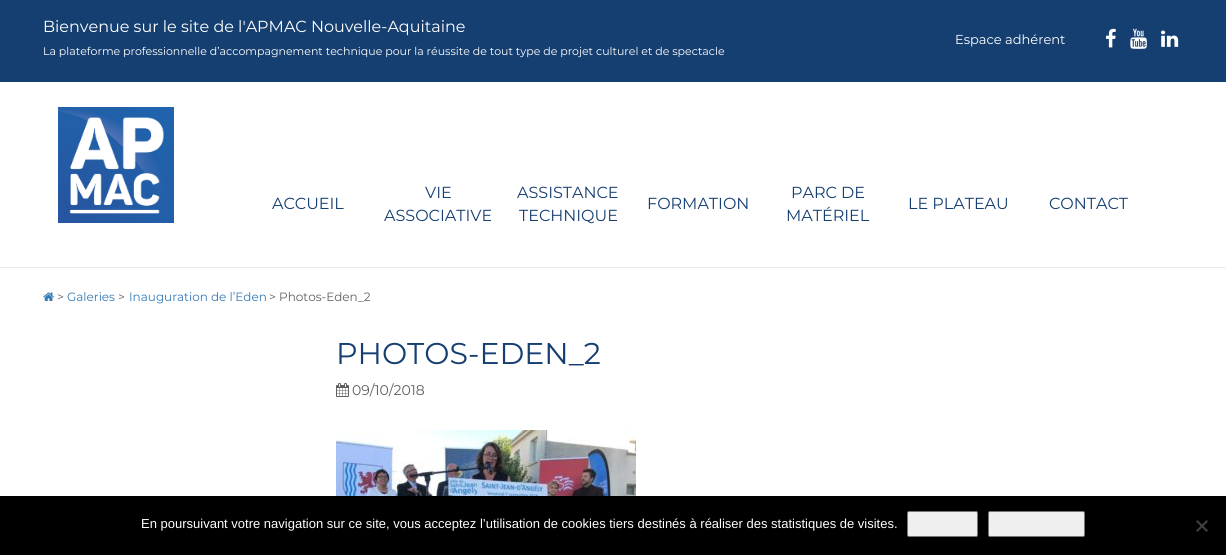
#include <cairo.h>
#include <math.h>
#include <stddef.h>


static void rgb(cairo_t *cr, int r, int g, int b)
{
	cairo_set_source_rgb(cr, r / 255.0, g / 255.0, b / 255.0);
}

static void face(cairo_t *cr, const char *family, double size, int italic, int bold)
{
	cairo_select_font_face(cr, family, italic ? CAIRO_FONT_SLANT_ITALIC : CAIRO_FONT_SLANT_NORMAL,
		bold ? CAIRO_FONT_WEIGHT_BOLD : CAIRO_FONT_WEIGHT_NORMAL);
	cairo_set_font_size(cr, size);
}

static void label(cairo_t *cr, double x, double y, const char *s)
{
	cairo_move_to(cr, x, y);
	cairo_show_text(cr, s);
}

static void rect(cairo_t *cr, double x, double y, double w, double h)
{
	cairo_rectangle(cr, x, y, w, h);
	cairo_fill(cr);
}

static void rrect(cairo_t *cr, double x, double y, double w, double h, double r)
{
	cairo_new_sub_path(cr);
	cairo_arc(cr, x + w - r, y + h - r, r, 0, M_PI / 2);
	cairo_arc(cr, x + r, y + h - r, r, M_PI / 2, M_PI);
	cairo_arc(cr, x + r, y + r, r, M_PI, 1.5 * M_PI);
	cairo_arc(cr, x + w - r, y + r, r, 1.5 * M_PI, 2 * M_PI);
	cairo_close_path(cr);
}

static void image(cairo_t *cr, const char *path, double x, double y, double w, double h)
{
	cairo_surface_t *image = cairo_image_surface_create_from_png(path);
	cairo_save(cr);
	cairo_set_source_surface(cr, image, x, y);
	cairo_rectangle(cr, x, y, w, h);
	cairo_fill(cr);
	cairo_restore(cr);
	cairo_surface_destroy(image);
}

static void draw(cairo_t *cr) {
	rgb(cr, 255, 255, 255);
	cairo_paint(cr);
	rgb(cr, 21, 63, 113);
	rect(cr, 0, 0, 1226, 82);
	face(cr, "Montserrat", 16, 0, 0);
	rgb(cr, 255, 255, 255);
	label(cr, 43, 32, "Bienvenue sur le site de l'APMAC Nouvelle-Aquitaine");
	face(cr, "Montserrat", 11, 0, 0);
	label(cr, 43, 55, "La plateforme professionnelle d’accompagnement technique pour la réussite de tout type de projet culturel et de spectacle");
	face(cr, "Montserrat", 13, 0, 0);
	label(cr, 955, 44, "Espace adhérent");
	image(cr, "image0.png", 1106, 28, 10, 20);
	image(cr, "image1.png", 1130, 28, 17, 21);
	image(cr, "image2.png", 1161, 30, 18, 17);
	image(cr, "image3.png", 58, 107, 116, 116);
	face(cr, "Montserrat", 16, 0, 0);
	rgb(cr, 21, 63, 113);
	label(cr, 272, 209, "ACCUEIL");
	label(cr, 425, 198, "VIE");
	label(cr, 384, 221, "ASSOCIATIVE");
	label(cr, 517, 198, "ASSISTANCE");
	label(cr, 519, 221, "TECHNIQUE");
	label(cr, 647, 209, "FORMATION");
	label(cr, 791, 198, "PARC DE");
	label(cr, 786, 221, "MATÉRIEL");
	label(cr, 908, 209, "LE PLATEAU");
	label(cr, 1049, 209, "CONTACT");
	rgb(cr, 234, 234, 234);
	rect(cr, 0, 267, 1226, 1);
	image(cr, "image4.png", 43, 292, 11, 9);
	face(cr, "Montserrat", 12, 0, 0);
	rgb(cr, 95, 95, 95);
	label(cr, 57, 301, ">");
	rgb(cr, 51, 122, 183);
	label(cr, 67, 301, "Galeries");
	rgb(cr, 95, 95, 95);
	label(cr, 118, 301, ">");
	rgb(cr, 51, 122, 183);
	label(cr, 129, 301, "Inauguration de l’Eden");
	rgb(cr, 95, 95, 95);
	label(cr, 269, 301, "> Photos-Eden_2");
	face(cr, "Montserrat", 30, 0, 0);
	rgb(cr, 21, 63, 113);
	label(cr, 336, 364, "PHOTOS-EDEN_2");
	image(cr, "image5.png", 336, 383, 13, 14);
	face(cr, "Montserrat", 14, 0, 0);
	rgb(cr, 95, 95, 95);
	label(cr, 352, 395, "09/10/2018");
	image(cr, "image6.png", 336, 430, 300, 66);
	rgb(cr, 0, 0, 0);
	rect(cr, 0, 496, 1226, 59);
	face(cr, "Liberation Sans", 13, 0, 0);
	rgb(cr, 255, 255, 255);
	label(cr, 141, 528, "En poursuivant votre navigation sur ce site, vous acceptez l’utilisation de cookies tiers destinés à réaliser des statistiques de visites.");
	rgb(cr, 239, 239, 239);
	rrect(cr, 907.5, 511.5, 70, 25, 1.5);
	cairo_fill_preserve(cr);
	rgb(cr, 118, 118, 118);
	cairo_set_line_width(cr, 1);
	cairo_stroke(cr);
	rgb(cr, 239, 239, 239);
	rrect(cr, 988.5, 511.5, 96, 25, 1.5);
	cairo_fill_preserve(cr);
	rgb(cr, 118, 118, 118);
	cairo_stroke(cr);
	rgb(cr, 64, 64, 64);
	cairo_new_path(cr);
	cairo_move_to(cr, 1206.5, 520);
	cairo_line_to(cr, 1208, 521.5);
	cairo_line_to(cr, 1197.5, 532);
	cairo_line_to(cr, 1196, 530.5);
	cairo_close_path(cr);
	cairo_fill(cr);
	cairo_new_path(cr);
	cairo_move_to(cr, 1196, 521.5);
	cairo_line_to(cr, 1197.5, 520);
	cairo_line_to(cr, 1208, 530.5);
	cairo_line_to(cr, 1206.5, 532);
	cairo_close_path(cr);
	cairo_fill(cr);
}

int main(void) {
	cairo_surface_t *surface = cairo_image_surface_create(CAIRO_FORMAT_RGB24, 1226, 555);
	cairo_t *cr = cairo_create(surface);
	cairo_font_options_t *options = cairo_font_options_create();
	cairo_font_options_set_hint_metrics(options, CAIRO_HINT_METRICS_OFF);
	cairo_font_options_set_hint_style(options, CAIRO_HINT_STYLE_NONE);
	cairo_set_font_options(cr, options);
	cairo_set_miter_limit(cr, 4);
	draw(cr);
	cairo_surface_write_to_png(surface, "render.png");
	cairo_font_options_destroy(options);
	cairo_destroy(cr);
	cairo_surface_destroy(surface);
	return 0;
}
